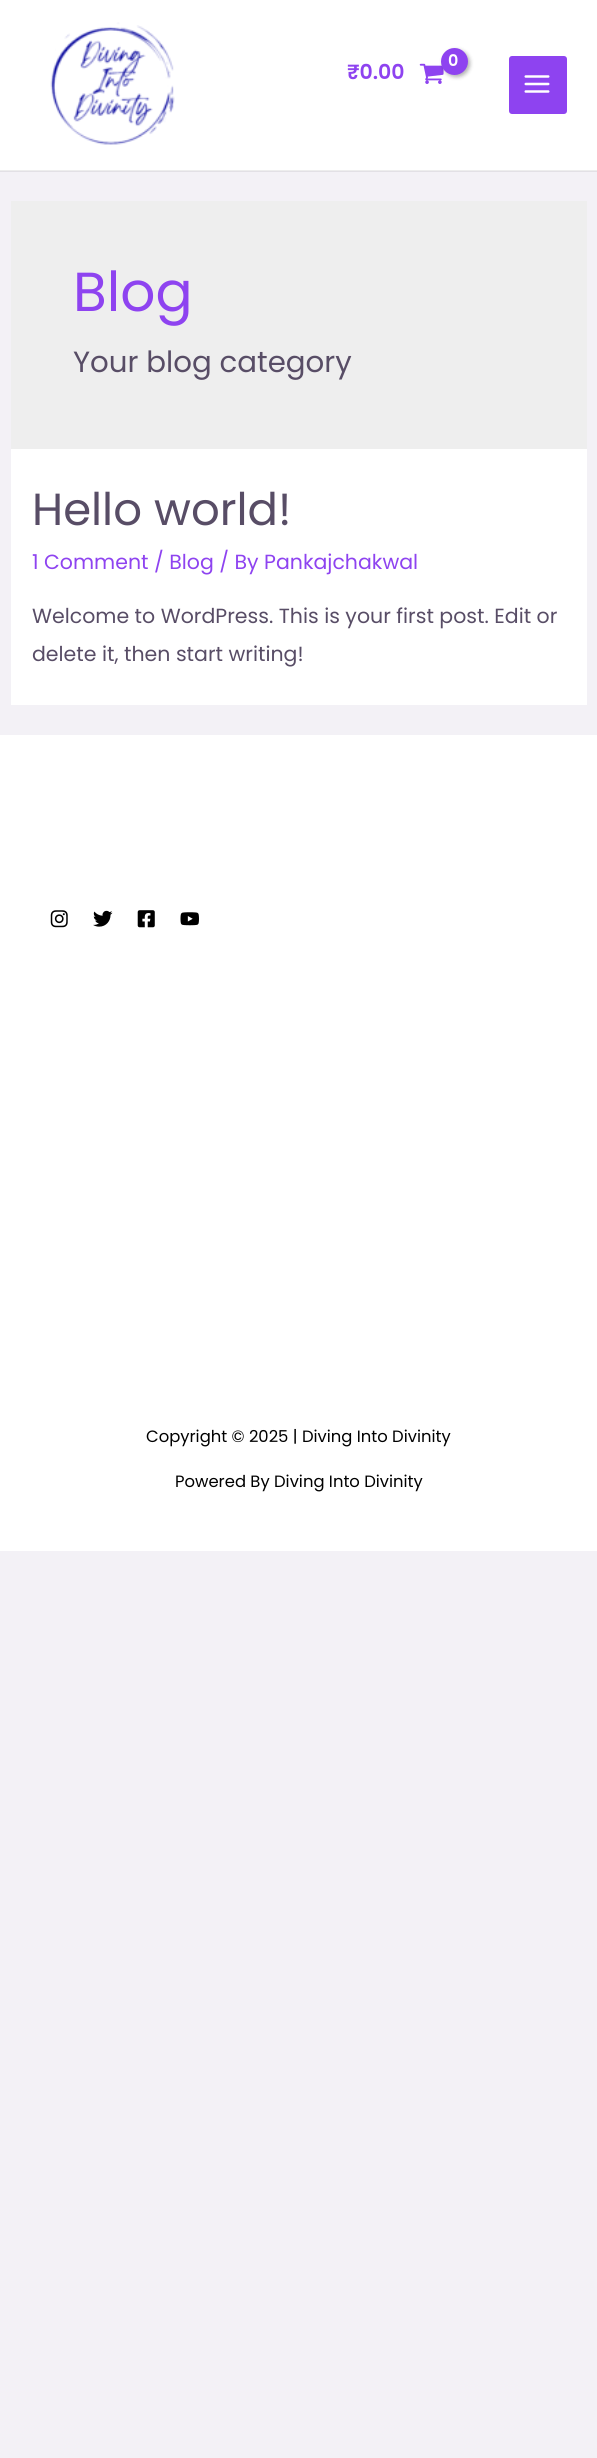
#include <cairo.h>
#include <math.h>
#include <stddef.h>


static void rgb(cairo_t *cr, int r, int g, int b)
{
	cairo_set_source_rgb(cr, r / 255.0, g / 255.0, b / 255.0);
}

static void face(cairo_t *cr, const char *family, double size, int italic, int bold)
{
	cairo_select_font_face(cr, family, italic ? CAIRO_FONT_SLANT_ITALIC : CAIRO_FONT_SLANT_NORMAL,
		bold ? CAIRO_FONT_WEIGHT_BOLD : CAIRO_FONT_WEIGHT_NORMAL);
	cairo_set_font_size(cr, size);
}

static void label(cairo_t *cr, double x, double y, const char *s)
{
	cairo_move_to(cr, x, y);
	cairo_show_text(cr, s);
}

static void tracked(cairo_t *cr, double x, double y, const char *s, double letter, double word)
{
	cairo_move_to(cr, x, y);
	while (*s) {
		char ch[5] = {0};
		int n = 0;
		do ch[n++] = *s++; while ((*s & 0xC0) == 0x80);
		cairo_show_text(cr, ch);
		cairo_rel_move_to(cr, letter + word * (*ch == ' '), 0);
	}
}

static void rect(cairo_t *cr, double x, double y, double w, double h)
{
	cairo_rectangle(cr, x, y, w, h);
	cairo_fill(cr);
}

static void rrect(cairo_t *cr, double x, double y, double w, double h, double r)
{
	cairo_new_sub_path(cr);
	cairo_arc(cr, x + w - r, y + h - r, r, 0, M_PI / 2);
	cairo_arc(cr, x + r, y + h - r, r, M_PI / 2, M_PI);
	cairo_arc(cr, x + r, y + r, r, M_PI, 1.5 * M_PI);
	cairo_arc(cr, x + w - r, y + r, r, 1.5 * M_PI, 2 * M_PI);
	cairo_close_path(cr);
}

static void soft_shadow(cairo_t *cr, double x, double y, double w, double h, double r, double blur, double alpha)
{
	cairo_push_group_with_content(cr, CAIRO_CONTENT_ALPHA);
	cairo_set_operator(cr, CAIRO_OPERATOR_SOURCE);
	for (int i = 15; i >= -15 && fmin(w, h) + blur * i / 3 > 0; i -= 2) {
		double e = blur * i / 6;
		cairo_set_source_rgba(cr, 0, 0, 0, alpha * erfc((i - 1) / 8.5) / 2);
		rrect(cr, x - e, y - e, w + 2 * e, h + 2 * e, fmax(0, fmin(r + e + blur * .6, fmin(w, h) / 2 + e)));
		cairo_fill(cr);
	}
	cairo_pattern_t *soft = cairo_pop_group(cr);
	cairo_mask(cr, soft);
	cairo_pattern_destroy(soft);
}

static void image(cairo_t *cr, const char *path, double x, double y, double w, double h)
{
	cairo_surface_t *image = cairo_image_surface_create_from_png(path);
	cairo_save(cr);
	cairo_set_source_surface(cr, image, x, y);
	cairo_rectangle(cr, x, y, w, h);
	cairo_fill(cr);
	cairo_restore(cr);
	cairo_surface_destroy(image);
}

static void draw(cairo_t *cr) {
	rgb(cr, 243, 241, 246);
	cairo_paint(cr);
	rgb(cr, 226, 224, 229);
	rect(cr, 0, 171, 597, 1);
	rgb(cr, 255, 255, 255);
	rect(cr, 0, 0, 597, 170);
	rgb(cr, 237, 237, 237);
	rect(cr, 0, 170, 597, 1);
	image(cr, "image0.png", 50, 22, 125, 123);
	image(cr, "image1.png", 419, 63, 25, 21);
	rgb(cr, 0, 0, 0);
	soft_shadow(cr, 443, 50, 27, 27, 13.5, 2, 0.3);
	rgb(cr, 142, 67, 240);
	cairo_arc(cr, 454.5, 61.5, 13.5, 0, 2 * M_PI);
	cairo_fill(cr);
	face(cr, "Poppins SemiBold", 16, 0, 0);
	rgb(cr, 255, 255, 255);
	tracked(cr, 448, 66, "0", -1, 0);
	face(cr, "Poppins SemiBold", 20.5, 0, 0);
	rgb(cr, 142, 67, 240);
	label(cr, 347, 79, "₹0.00");
	rrect(cr, 509, 56, 58, 58, 3);
	cairo_fill(cr);
	image(cr, "image2.png", 524, 75, 26, 18);
	rgb(cr, 238, 238, 238);
	rect(cr, 11, 201, 576, 248);
	face(cr, "Poppins", 55, 0, 0);
	rgb(cr, 142, 67, 240);
	label(cr, 73, 311, "Blog");
	face(cr, "Poppins", 29.25, 0, 0);
	rgb(cr, 88, 77, 102);
	label(cr, 73, 372, "Your blog category");
	rgb(cr, 255, 255, 255);
	rect(cr, 11, 449, 576, 256);
	face(cr, "Poppins", 45, 0, 0);
	rgb(cr, 88, 77, 102);
	label(cr, 32, 525, "Hello world!");
	face(cr, "Poppins", 20.5, 0, 0);
	rgb(cr, 142, 67, 240);
	label(cr, 32, 569, "1 Comment / Blog / By Pankajchakwal");
	rgb(cr, 88, 77, 102);
	label(cr, 32, 623, "Welcome to WordPress. This is your first post. Edit or");
	label(cr, 32, 661, "delete it, then start writing!");
	rgb(cr, 255, 255, 255);
	rect(cr, 0, 735, 597, 648);
	image(cr, "image3.png", 50, 910, 18, 18);
	image(cr, "image4.png", 93, 910, 20, 17);
	image(cr, "image5.png", 137, 910, 18, 18);
	image(cr, "image6.png", 180, 912, 19, 14);
	rect(cr, 0, 1383, 597, 168);
	face(cr, "Poppins", 16.4, 0, 0);
	rgb(cr, 0, 0, 0);
	label(cr, 146, 1442, "Copyright © 2025 | Diving Into Divinity");
	label(cr, 175, 1487, "Powered By Diving Into Divinity");
}

int main(void) {
	cairo_surface_t *surface = cairo_image_surface_create(CAIRO_FORMAT_RGB24, 597, 2458);
	cairo_t *cr = cairo_create(surface);
	cairo_font_options_t *options = cairo_font_options_create();
	cairo_font_options_set_hint_metrics(options, CAIRO_HINT_METRICS_OFF);
	cairo_font_options_set_hint_style(options, CAIRO_HINT_STYLE_NONE);
	cairo_set_font_options(cr, options);
	cairo_set_miter_limit(cr, 4);
	draw(cr);
	cairo_surface_write_to_png(surface, "render.png");
	cairo_font_options_destroy(options);
	cairo_destroy(cr);
	cairo_surface_destroy(surface);
	return 0;
}
